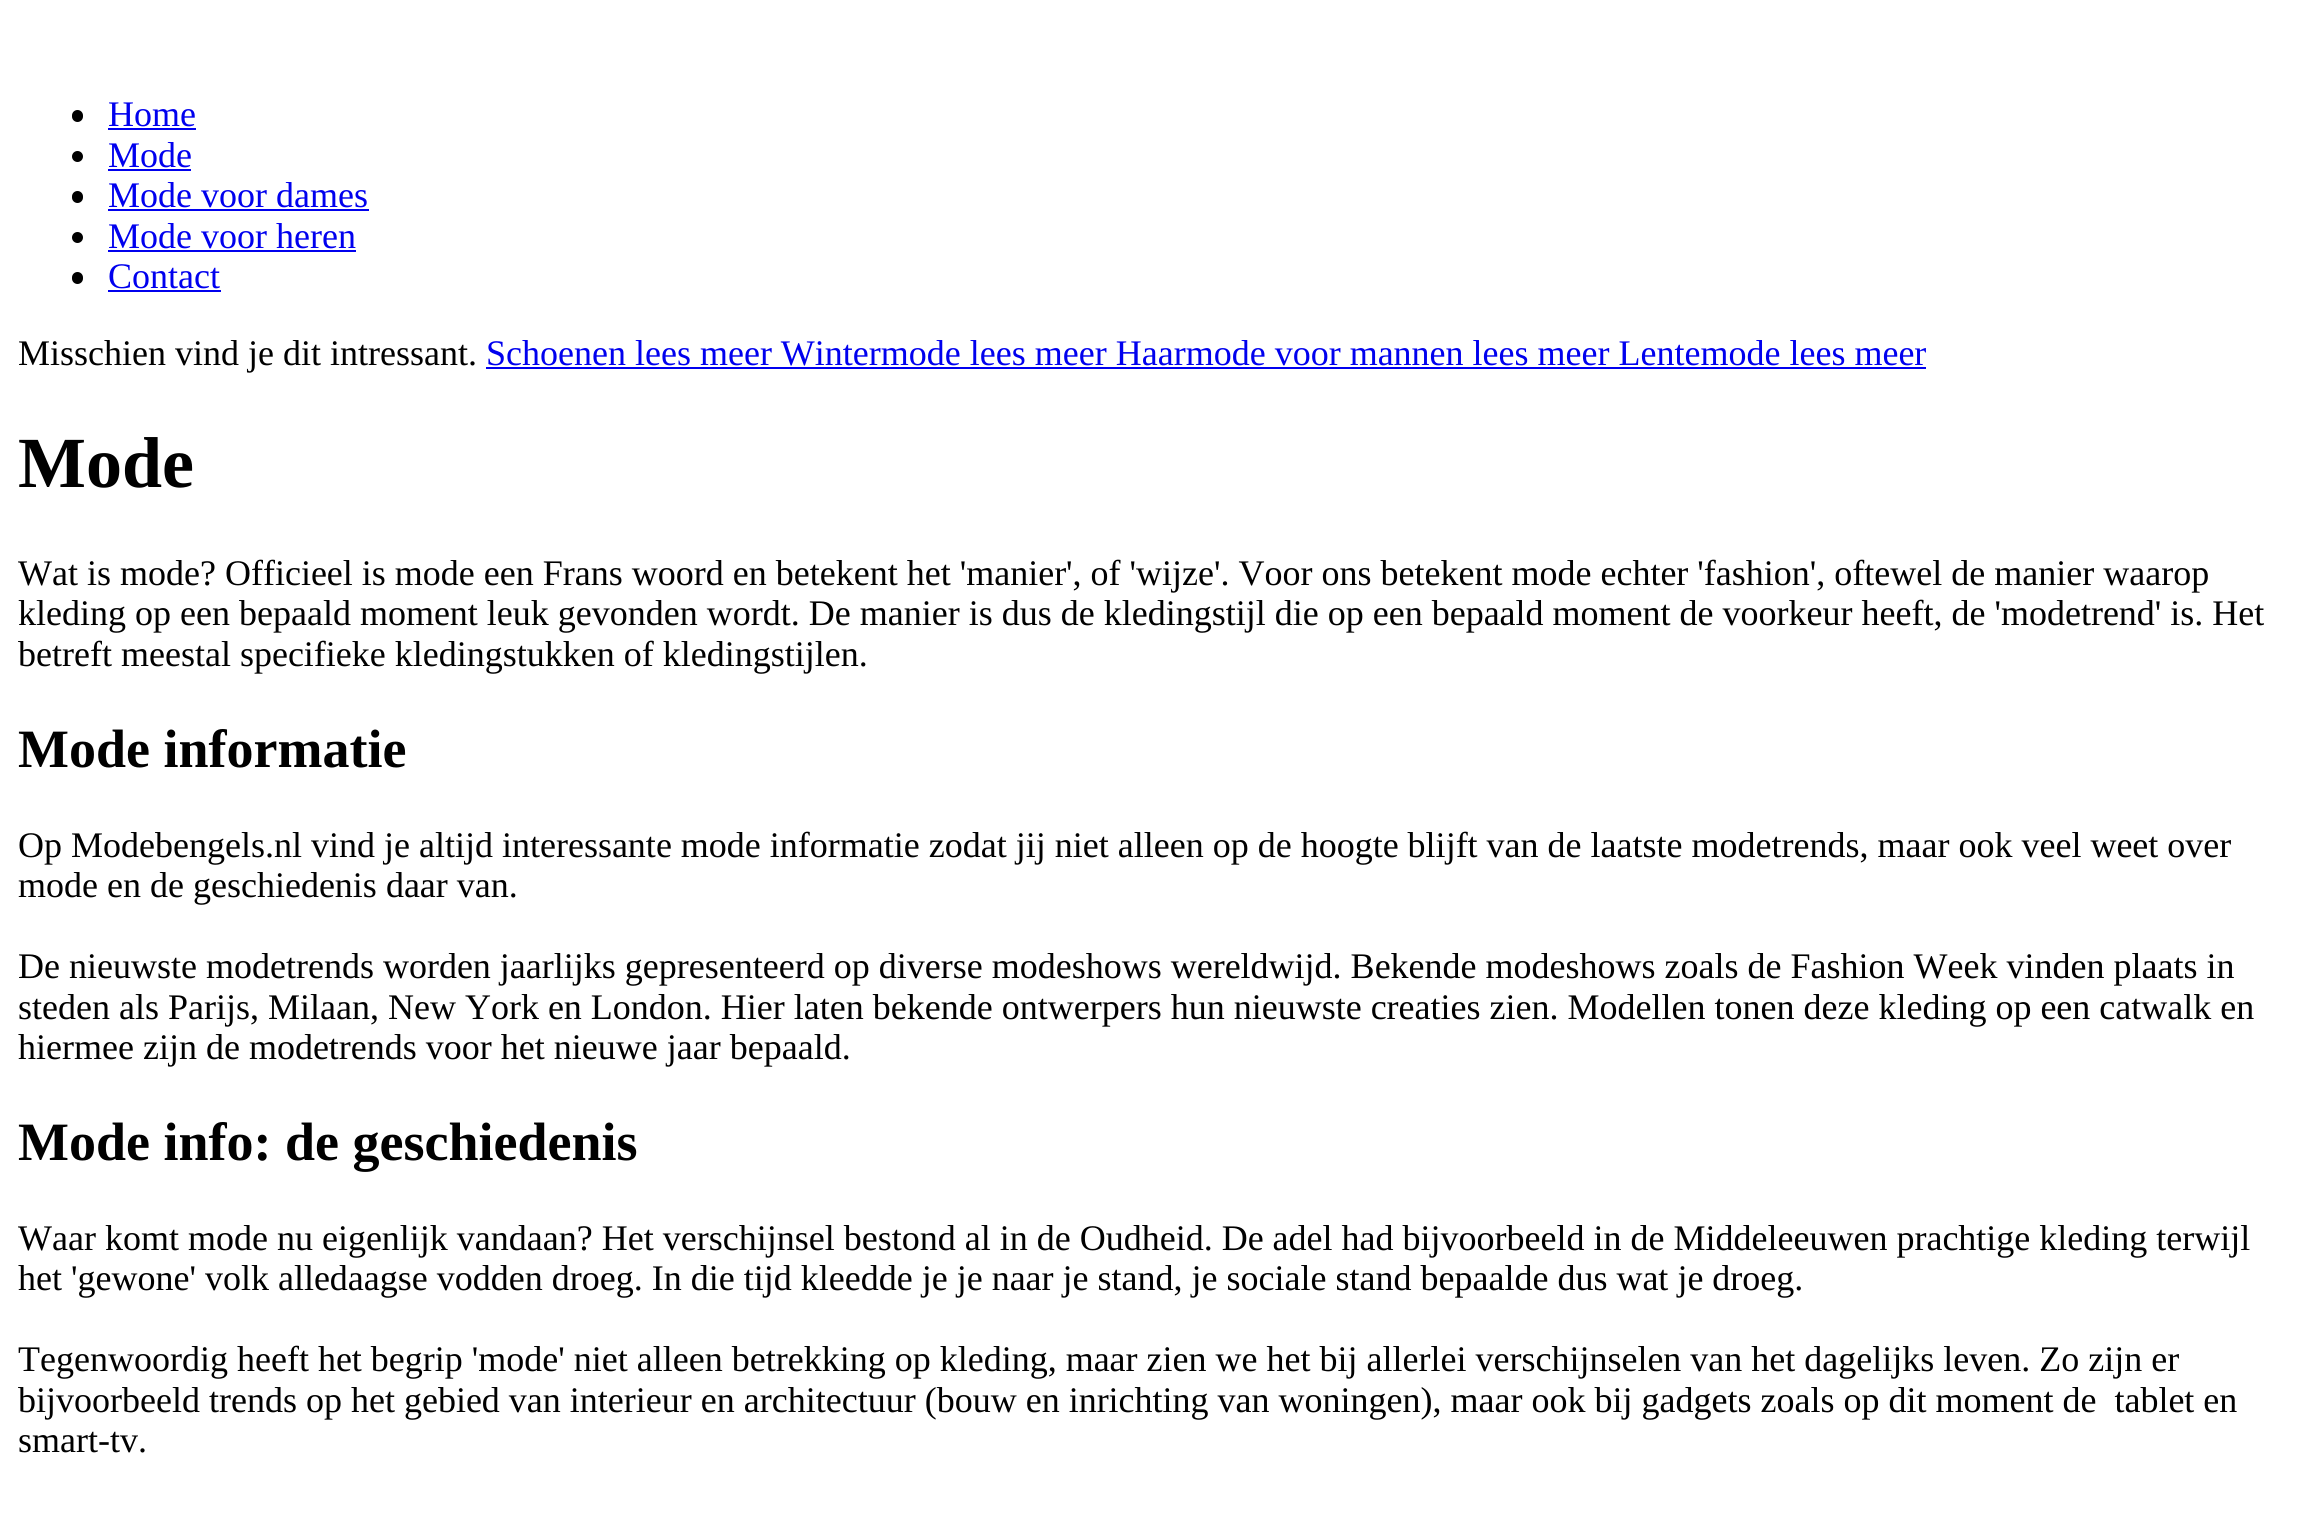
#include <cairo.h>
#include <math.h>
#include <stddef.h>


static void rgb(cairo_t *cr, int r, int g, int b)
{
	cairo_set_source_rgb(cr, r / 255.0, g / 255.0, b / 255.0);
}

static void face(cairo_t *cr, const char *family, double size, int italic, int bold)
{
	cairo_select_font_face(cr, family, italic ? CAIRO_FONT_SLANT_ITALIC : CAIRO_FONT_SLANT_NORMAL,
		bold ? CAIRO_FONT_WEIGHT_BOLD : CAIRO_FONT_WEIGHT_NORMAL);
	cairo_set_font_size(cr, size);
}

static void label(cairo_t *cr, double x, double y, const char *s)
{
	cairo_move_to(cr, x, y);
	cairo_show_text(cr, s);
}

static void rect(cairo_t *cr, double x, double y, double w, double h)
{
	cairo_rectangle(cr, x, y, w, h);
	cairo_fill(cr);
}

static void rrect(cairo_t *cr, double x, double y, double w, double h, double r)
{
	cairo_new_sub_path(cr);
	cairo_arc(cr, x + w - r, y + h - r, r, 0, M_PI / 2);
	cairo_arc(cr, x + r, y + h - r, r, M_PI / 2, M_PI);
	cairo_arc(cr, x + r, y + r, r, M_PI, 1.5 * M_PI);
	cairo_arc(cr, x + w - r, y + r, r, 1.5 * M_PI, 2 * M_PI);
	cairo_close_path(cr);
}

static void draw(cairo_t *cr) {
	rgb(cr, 255, 255, 255);
	cairo_paint(cr);
	rgb(cr, 0, 0, 0);
	rrect(cr, 72, 110, 11, 12, 5.5);
	cairo_fill(cr);
	face(cr, "Liberation Serif", 36, 0, 0);
	rgb(cr, 0, 0, 238);
	label(cr, 108, 126, "Home");
	rect(cr, 108, 128, 88, 2);
	rgb(cr, 0, 0, 0);
	cairo_new_path(cr);
	cairo_arc(cr, 77.5, 156.5, 5.5, 0, 2 * M_PI);
	cairo_fill(cr);
	rgb(cr, 0, 0, 238);
	label(cr, 108, 167, "Mode");
	rect(cr, 108, 169, 83, 2);
	rgb(cr, 0, 0, 0);
	rrect(cr, 72, 191, 11, 12, 5.5);
	cairo_fill(cr);
	rgb(cr, 0, 0, 238);
	label(cr, 108, 207, "Mode voor dames");
	rect(cr, 108, 209, 261, 2);
	rgb(cr, 0, 0, 0);
	cairo_new_path(cr);
	cairo_arc(cr, 77.5, 237.5, 5.5, 0, 2 * M_PI);
	cairo_fill(cr);
	rgb(cr, 0, 0, 238);
	label(cr, 108, 248, "Mode voor heren");
	rect(cr, 108, 250, 248, 2);
	rgb(cr, 0, 0, 0);
	rrect(cr, 72, 272, 11, 12, 5.5);
	cairo_fill(cr);
	rgb(cr, 0, 0, 238);
	label(cr, 108, 288, "Contact");
	rect(cr, 108, 290, 113, 2);
	rgb(cr, 0, 0, 0);
	label(cr, 18, 365, "Misschien vind je dit intressant.");
	rgb(cr, 0, 0, 238);
	label(cr, 486, 365, "Schoenen lees meer Wintermode lees meer Haarmode voor mannen lees meer Lentemode lees meer");
	rect(cr, 486, 367, 1440, 2);
	face(cr, "Liberation Serif", 72, 0, 1);
	rgb(cr, 0, 0, 0);
	label(cr, 18, 487, "Mode");
	face(cr, "Liberation Serif", 36, 0, 0);
	label(cr, 18, 585, "Wat is mode? Officieel is mode een Frans woord en betekent het 'manier', of 'wijze'. Voor ons betekent mode echter 'fashion', oftewel de manier waarop");
	label(cr, 18, 625, "kleding op een bepaald moment leuk gevonden wordt. De manier is dus de kledingstijl die op een bepaald moment de voorkeur heeft, de 'modetrend' is. Het");
	label(cr, 18, 666, "betreft meestal specifieke kledingstukken of kledingstijlen.");
	face(cr, "Liberation Serif", 54, 0, 1);
	label(cr, 18, 767, "Mode informatie");
	face(cr, "Liberation Serif", 36, 0, 0);
	label(cr, 18, 857, "Op Modebengels.nl vind je altijd interessante mode informatie zodat jij niet alleen op de hoogte blijft van de laatste modetrends, maar ook veel weet over");
	label(cr, 18, 897, "mode en de geschiedenis daar van.");
	label(cr, 18, 978, "De nieuwste modetrends worden jaarlijks gepresenteerd op diverse modeshows wereldwijd. Bekende modeshows zoals de Fashion Week vinden plaats in");
	label(cr, 18, 1019, "steden als Parijs, Milaan, New York en London. Hier laten bekende ontwerpers hun nieuwste creaties zien. Modellen tonen deze kleding op een catwalk en");
	label(cr, 18, 1059, "hiermee zijn de modetrends voor het nieuwe jaar bepaald.");
	face(cr, "Liberation Serif", 54, 0, 1);
	label(cr, 18, 1160, "Mode info: de geschiedenis");
	face(cr, "Liberation Serif", 36, 0, 0);
	label(cr, 18, 1250, "Waar komt mode nu eigenlijk vandaan? Het verschijnsel bestond al in de Oudheid. De adel had bijvoorbeeld in de Middeleeuwen prachtige kleding terwijl");
	label(cr, 18, 1290, "het 'gewone' volk alledaagse vodden droeg. In die tijd kleedde je je naar je stand, je sociale stand bepaalde dus wat je droeg.");
	label(cr, 18, 1371, "Tegenwoordig heeft het begrip 'mode' niet alleen betrekking op kleding, maar zien we het bij allerlei verschijnselen van het dagelijks leven. Zo zijn er");
	label(cr, 18, 1412, "bijvoorbeeld trends op het gebied van interieur en architectuur (bouw en inrichting van woningen), maar ook bij gadgets zoals op dit moment de  tablet en");
	label(cr, 18, 1452, "smart-tv.");
}

int main(void) {
	cairo_surface_t *surface = cairo_image_surface_create(CAIRO_FORMAT_RGB24, 2317, 1526);
	cairo_t *cr = cairo_create(surface);
	cairo_font_options_t *options = cairo_font_options_create();
	cairo_font_options_set_hint_metrics(options, CAIRO_HINT_METRICS_OFF);
	cairo_font_options_set_hint_style(options, CAIRO_HINT_STYLE_NONE);
	cairo_set_font_options(cr, options);
	cairo_set_miter_limit(cr, 4);
	draw(cr);
	cairo_surface_write_to_png(surface, "render.png");
	cairo_font_options_destroy(options);
	cairo_destroy(cr);
	cairo_surface_destroy(surface);
	return 0;
}
